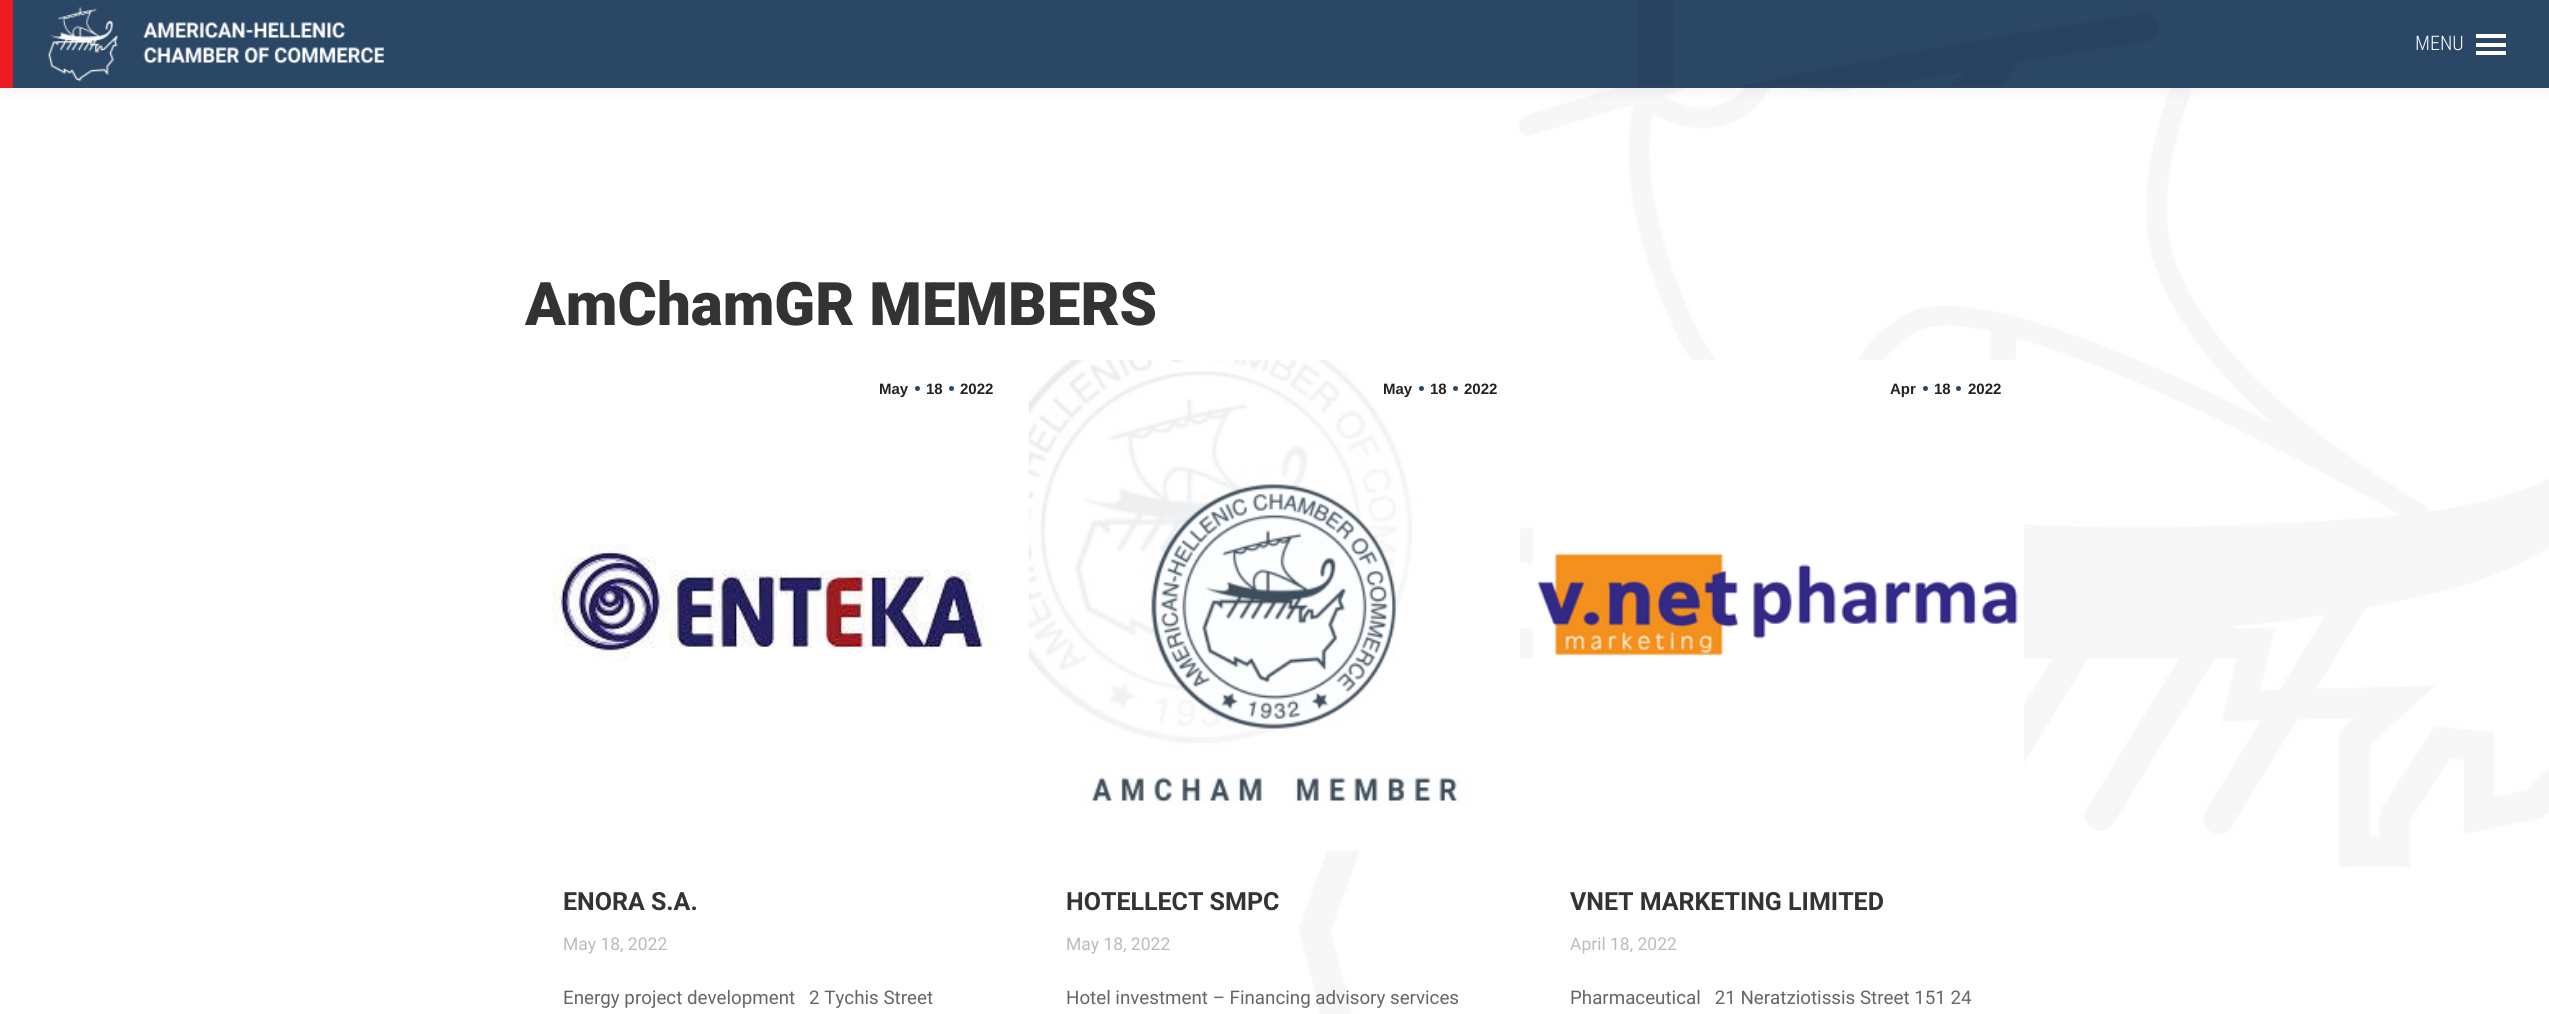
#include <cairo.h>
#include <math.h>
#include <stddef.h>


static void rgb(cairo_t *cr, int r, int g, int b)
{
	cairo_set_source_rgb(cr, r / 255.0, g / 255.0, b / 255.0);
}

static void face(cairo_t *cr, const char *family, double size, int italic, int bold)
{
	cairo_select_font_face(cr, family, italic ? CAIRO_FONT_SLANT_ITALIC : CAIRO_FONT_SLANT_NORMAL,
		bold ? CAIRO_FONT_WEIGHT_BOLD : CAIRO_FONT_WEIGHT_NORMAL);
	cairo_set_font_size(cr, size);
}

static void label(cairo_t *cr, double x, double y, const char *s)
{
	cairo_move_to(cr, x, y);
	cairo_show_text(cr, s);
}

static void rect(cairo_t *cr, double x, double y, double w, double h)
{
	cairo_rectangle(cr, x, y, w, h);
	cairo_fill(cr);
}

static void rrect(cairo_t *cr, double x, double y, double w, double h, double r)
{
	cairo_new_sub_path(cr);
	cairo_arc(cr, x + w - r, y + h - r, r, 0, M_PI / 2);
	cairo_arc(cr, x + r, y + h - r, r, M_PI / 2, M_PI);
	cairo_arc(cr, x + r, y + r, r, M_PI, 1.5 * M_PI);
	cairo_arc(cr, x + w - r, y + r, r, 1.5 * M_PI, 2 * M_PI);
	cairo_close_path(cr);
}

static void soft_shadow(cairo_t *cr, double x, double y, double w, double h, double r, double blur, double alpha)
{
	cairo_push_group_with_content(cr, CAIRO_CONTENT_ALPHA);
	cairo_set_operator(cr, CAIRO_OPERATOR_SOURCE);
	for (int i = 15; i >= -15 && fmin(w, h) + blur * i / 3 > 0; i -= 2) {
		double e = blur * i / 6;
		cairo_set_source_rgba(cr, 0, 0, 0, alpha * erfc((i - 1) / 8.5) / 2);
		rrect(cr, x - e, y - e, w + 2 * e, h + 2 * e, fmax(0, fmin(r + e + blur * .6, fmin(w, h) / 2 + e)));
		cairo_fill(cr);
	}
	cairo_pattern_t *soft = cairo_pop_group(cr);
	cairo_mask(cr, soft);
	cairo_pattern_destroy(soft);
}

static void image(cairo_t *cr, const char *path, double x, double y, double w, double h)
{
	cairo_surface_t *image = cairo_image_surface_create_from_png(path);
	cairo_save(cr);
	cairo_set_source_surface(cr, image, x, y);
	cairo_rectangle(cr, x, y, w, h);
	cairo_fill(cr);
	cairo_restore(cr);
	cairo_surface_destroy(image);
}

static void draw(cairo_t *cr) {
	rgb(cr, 255, 255, 255);
	cairo_paint(cr);
	image(cr, "image0.png", 0, 88, 2549, 926);
	rgb(cr, 0, 0, 0);
	soft_shadow(cr, -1, -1, 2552, 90, 0, 9.5, 0.07);
	rgb(cr, 42, 71, 101);
	rect(cr, 13, 0, 2536, 88);
	image(cr, "image1.png", 1638, 0, 520, 87);
	rgb(cr, 236, 27, 35);
	rect(cr, 0, 0, 13, 88);
	image(cr, "image2.png", 47, 7, 337, 75);
	face(cr, "Roboto Condensed Light", 20, 0, 0);
	rgb(cr, 255, 255, 255);
	label(cr, 2415, 50, "MENU");
	rect(cr, 2476, 34, 30, 4);
	rect(cr, 2476, 43, 30, 4);
	rect(cr, 2476, 51, 30, 4);
	face(cr, "Roboto Black", 60, 0, 0);
	rgb(cr, 51, 51, 51);
	label(cr, 525, 325, "AmChamGR MEMBERS");
	face(cr, "Liberation Sans", 15, 0, 1);
	rgb(cr, 34, 34, 34);
	label(cr, 879, 394, "May");
	rgb(cr, 42, 71, 101);
	cairo_new_path(cr);
	cairo_arc(cr, 917.5, 388.5, 2.5, 0, 2 * M_PI);
	cairo_fill(cr);
	rgb(cr, 34, 34, 34);
	label(cr, 926, 394, "18");
	rgb(cr, 42, 71, 101);
	cairo_new_path(cr);
	cairo_arc(cr, 951.5, 388.5, 2.5, 0, 2 * M_PI);
	cairo_fill(cr);
	rgb(cr, 34, 34, 34);
	label(cr, 960, 394, "2022");
	image(cr, "image3.png", 551, 543, 446, 119);
	face(cr, "Roboto", 25, 0, 1);
	rgb(cr, 51, 51, 51);
	label(cr, 563, 910, "ENORA S.A.");
	face(cr, "Roboto", 17.5, 0, 0);
	rgb(cr, 187, 187, 187);
	label(cr, 563, 950, "May 18, 2022");
	face(cr, "Roboto", 18.75, 0, 0);
	rgb(cr, 102, 102, 102);
	label(cr, 563, 1004, "Energy project development   2 Tychis Street");
	image(cr, "image4.png", 1028, 360, 492, 491);
	face(cr, "Liberation Sans", 15, 0, 1);
	rgb(cr, 34, 34, 34);
	label(cr, 1383, 394, "May");
	rgb(cr, 42, 71, 101);
	cairo_new_path(cr);
	cairo_arc(cr, 1421.5, 388.5, 2.5, 0, 2 * M_PI);
	cairo_fill(cr);
	rgb(cr, 34, 34, 34);
	label(cr, 1430, 394, "18");
	rgb(cr, 42, 71, 101);
	cairo_new_path(cr);
	cairo_arc(cr, 1455.5, 388.5, 2.5, 0, 2 * M_PI);
	cairo_fill(cr);
	rgb(cr, 34, 34, 34);
	label(cr, 1464, 394, "2022");
	face(cr, "Roboto", 25, 0, 1);
	rgb(cr, 51, 51, 51);
	label(cr, 1066, 910, "HOTELLECT SMPC");
	face(cr, "Roboto", 17.5, 0, 0);
	rgb(cr, 187, 187, 187);
	label(cr, 1066, 950, "May 18, 2022");
	face(cr, "Roboto", 18.75, 0, 0);
	rgb(cr, 102, 102, 102);
	label(cr, 1066, 1004, "Hotel investment – Financing advisory services");
	image(cr, "image5.png", 1532, 360, 492, 468);
	face(cr, "Liberation Sans", 15, 0, 1);
	rgb(cr, 34, 34, 34);
	label(cr, 1890, 394, "Apr");
	rgb(cr, 42, 71, 101);
	cairo_new_path(cr);
	cairo_arc(cr, 1925.5, 388.5, 2.5, 0, 2 * M_PI);
	cairo_fill(cr);
	rgb(cr, 34, 34, 34);
	label(cr, 1934, 394, "18");
	rgb(cr, 42, 71, 101);
	cairo_new_path(cr);
	cairo_arc(cr, 1958.5, 388.5, 2.5, 0, 2 * M_PI);
	cairo_fill(cr);
	rgb(cr, 34, 34, 34);
	label(cr, 1968, 394, "2022");
	face(cr, "Roboto", 25, 0, 1);
	rgb(cr, 51, 51, 51);
	label(cr, 1570, 910, "VNET MARKETING LIMITED");
	face(cr, "Roboto", 17.5, 0, 0);
	rgb(cr, 187, 187, 187);
	label(cr, 1570, 950, "April 18, 2022");
	face(cr, "Roboto", 18.75, 0, 0);
	rgb(cr, 102, 102, 102);
	label(cr, 1570, 1004, "Pharmaceutical   21 Neratziotissis Street 151 24");
}

int main(void) {
	cairo_surface_t *surface = cairo_image_surface_create(CAIRO_FORMAT_RGB24, 2549, 1014);
	cairo_t *cr = cairo_create(surface);
	cairo_font_options_t *options = cairo_font_options_create();
	cairo_font_options_set_hint_metrics(options, CAIRO_HINT_METRICS_OFF);
	cairo_font_options_set_hint_style(options, CAIRO_HINT_STYLE_NONE);
	cairo_set_font_options(cr, options);
	cairo_set_miter_limit(cr, 4);
	draw(cr);
	cairo_surface_write_to_png(surface, "render.png");
	cairo_font_options_destroy(options);
	cairo_destroy(cr);
	cairo_surface_destroy(surface);
	return 0;
}
